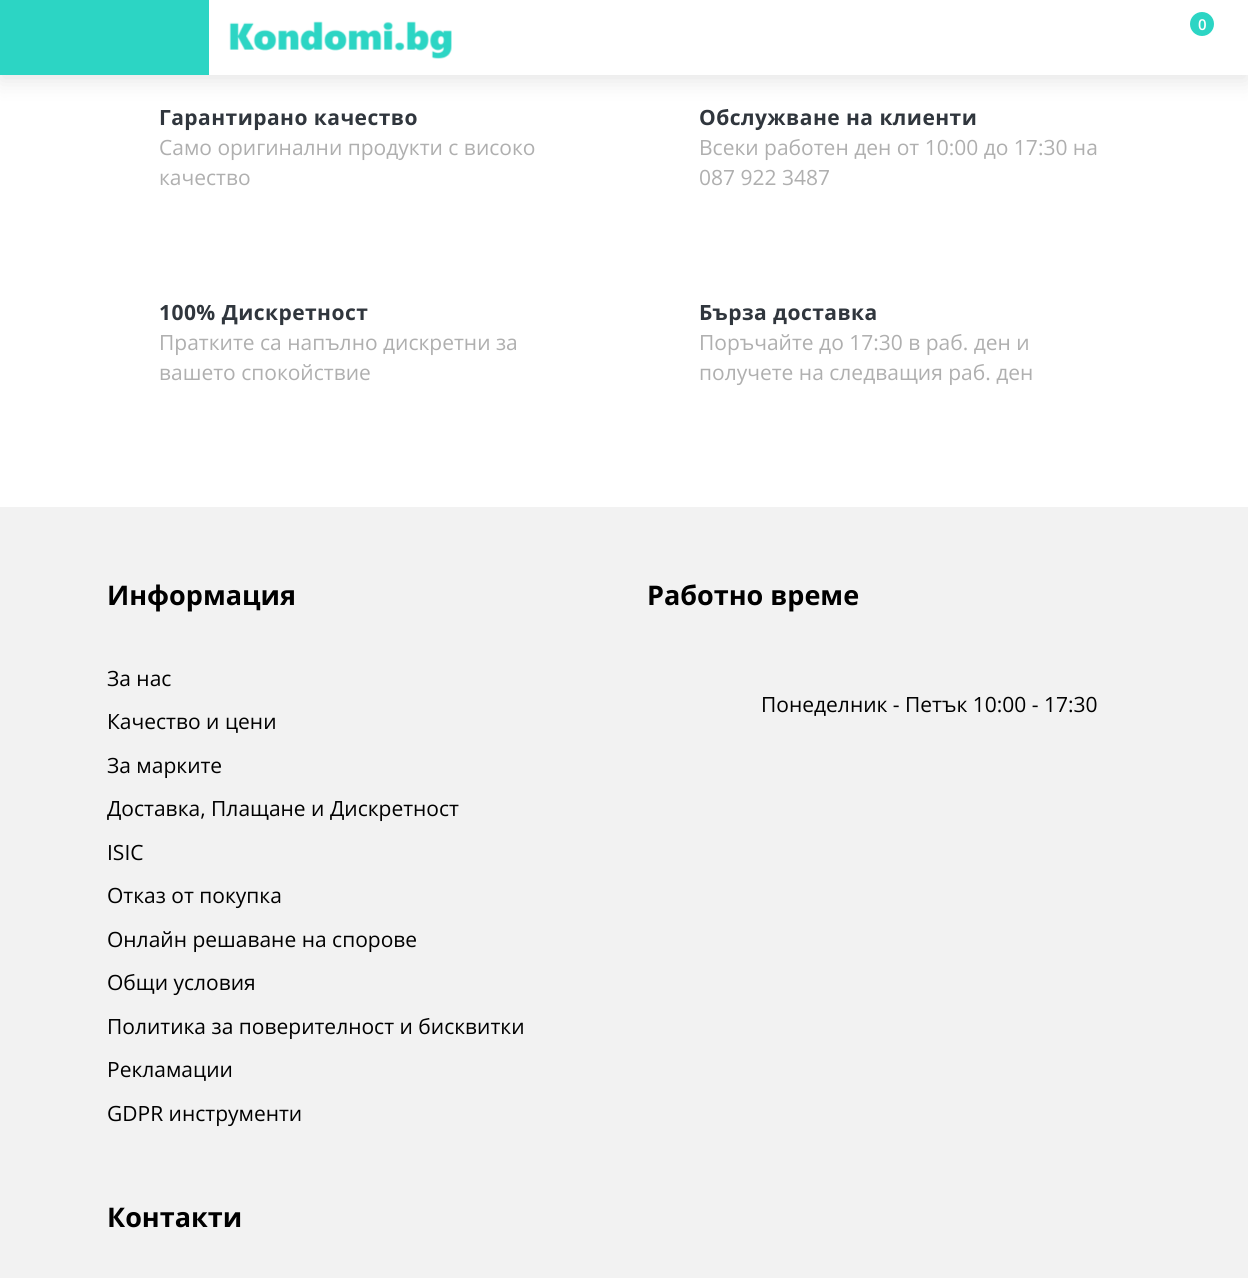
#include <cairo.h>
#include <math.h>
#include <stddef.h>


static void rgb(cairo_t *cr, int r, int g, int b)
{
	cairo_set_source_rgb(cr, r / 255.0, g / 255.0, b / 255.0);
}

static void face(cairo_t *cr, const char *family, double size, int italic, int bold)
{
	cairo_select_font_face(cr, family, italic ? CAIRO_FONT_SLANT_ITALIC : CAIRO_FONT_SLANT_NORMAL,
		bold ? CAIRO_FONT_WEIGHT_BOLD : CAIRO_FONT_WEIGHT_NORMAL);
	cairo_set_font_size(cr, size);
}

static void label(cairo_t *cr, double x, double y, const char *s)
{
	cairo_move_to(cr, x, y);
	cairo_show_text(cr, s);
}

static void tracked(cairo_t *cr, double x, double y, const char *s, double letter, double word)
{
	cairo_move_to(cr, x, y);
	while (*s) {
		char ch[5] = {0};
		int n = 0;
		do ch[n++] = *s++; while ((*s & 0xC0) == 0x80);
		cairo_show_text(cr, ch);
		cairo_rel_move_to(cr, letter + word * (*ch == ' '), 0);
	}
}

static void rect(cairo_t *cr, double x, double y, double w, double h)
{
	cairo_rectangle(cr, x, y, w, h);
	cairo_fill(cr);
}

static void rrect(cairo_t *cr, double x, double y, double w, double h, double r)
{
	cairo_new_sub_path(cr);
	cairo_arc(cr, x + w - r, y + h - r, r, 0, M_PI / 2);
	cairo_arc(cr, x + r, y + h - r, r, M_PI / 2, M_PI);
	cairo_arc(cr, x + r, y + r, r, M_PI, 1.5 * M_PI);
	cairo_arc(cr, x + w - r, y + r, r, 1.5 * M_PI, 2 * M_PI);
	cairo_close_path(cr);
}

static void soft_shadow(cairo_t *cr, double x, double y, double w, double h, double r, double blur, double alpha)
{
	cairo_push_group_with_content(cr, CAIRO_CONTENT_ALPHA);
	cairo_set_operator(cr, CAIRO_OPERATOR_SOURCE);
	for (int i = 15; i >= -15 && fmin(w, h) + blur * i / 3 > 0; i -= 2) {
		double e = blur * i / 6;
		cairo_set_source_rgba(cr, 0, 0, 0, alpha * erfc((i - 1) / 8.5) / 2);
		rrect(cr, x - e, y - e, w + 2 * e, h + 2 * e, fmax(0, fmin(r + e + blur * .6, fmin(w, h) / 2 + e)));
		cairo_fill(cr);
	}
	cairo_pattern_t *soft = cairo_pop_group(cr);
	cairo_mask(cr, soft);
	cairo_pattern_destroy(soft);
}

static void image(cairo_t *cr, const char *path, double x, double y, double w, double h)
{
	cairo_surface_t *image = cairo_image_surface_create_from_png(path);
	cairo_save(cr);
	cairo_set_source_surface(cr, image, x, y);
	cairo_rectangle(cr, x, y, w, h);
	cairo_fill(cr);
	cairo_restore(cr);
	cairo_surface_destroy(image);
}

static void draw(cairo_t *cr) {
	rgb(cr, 255, 255, 255);
	cairo_paint(cr);
	rgb(cr, 0, 0, 0);
	soft_shadow(cr, 0, 6, 1248, 75, 0, 11, 0.1);
	rgb(cr, 255, 255, 255);
	rect(cr, 209, 0, 1039, 75);
	rgb(cr, 44, 213, 196);
	rect(cr, 0, 0, 209, 75);
	image(cr, "image0.png", 229, 21, 223, 38);
	cairo_arc(cr, 1202, 24, 12, 0, 2 * M_PI);
	cairo_fill(cr);
	face(cr, "Open Sans SemiBold", 15, 0, 0);
	rgb(cr, 255, 255, 255);
	label(cr, 1198, 30, "0");
	face(cr, "Open Sans", 21, 0, 1);
	rgb(cr, 48, 54, 61);
	tracked(cr, 159, 125, "Гарантирано качество", 0.45, 0);
	face(cr, "Open Sans", 21, 0, 0);
	rgb(cr, 175, 175, 175);
	label(cr, 159, 155, "Само оригинални продукти с високо");
	label(cr, 159, 185, "качество");
	face(cr, "Open Sans", 21, 0, 1);
	rgb(cr, 48, 54, 61);
	tracked(cr, 699, 125, "Обслужване на клиенти", 0.45, 0);
	face(cr, "Open Sans", 21, 0, 0);
	rgb(cr, 175, 175, 175);
	label(cr, 699, 155, "Всеки работен ден от 10:00 до 17:30 на");
	label(cr, 699, 185, "087 922 3487");
	face(cr, "Open Sans", 21, 0, 1);
	rgb(cr, 48, 54, 61);
	tracked(cr, 159, 320, "100% Дискретност", 0.45, 0);
	face(cr, "Open Sans", 21, 0, 0);
	rgb(cr, 175, 175, 175);
	label(cr, 159, 350, "Пратките са напълно дискретни за");
	label(cr, 159, 380, "вашето спокойствие");
	face(cr, "Open Sans", 21, 0, 1);
	rgb(cr, 48, 54, 61);
	tracked(cr, 699, 320, "Бърза доставка", 0.45, 0);
	face(cr, "Open Sans", 21, 0, 0);
	rgb(cr, 175, 175, 175);
	label(cr, 699, 350, "Поръчайте до 17:30 в раб. ден и");
	label(cr, 699, 380, "получете на следващия раб. ден");
	rgb(cr, 242, 242, 242);
	rect(cr, 0, 507, 1248, 771);
	face(cr, "Open Sans", 27, 0, 1);
	rgb(cr, 0, 0, 0);
	label(cr, 107, 605, "Информация");
	face(cr, "Open Sans", 21, 0, 0);
	label(cr, 107, 686, "За нас");
	label(cr, 107, 729, "Качество и цени");
	label(cr, 107, 773, "За марките");
	label(cr, 107, 816, "Доставка, Плащане и Дискретност");
	label(cr, 107, 860, "ISIC");
	label(cr, 107, 903, "Отказ от покупка");
	label(cr, 107, 947, "Онлайн решаване на спорове");
	label(cr, 107, 990, "Общи условия");
	label(cr, 107, 1034, "Политика за поверителност и бисквитки");
	label(cr, 107, 1077, "Рекламации");
	label(cr, 107, 1121, "GDPR инструменти");
	face(cr, "Open Sans", 27, 0, 1);
	label(cr, 647, 605, "Работно време");
	face(cr, "Open Sans", 21, 0, 0);
	label(cr, 761, 712, "Понеделник - Петък 10:00 - 17:30");
	face(cr, "Open Sans", 27, 0, 1);
	label(cr, 107, 1227, "Контакти");
}

int main(void) {
	cairo_surface_t *surface = cairo_image_surface_create(CAIRO_FORMAT_RGB24, 1248, 1278);
	cairo_t *cr = cairo_create(surface);
	cairo_font_options_t *options = cairo_font_options_create();
	cairo_font_options_set_hint_metrics(options, CAIRO_HINT_METRICS_OFF);
	cairo_font_options_set_hint_style(options, CAIRO_HINT_STYLE_NONE);
	cairo_set_font_options(cr, options);
	cairo_set_miter_limit(cr, 4);
	draw(cr);
	cairo_surface_write_to_png(surface, "render.png");
	cairo_font_options_destroy(options);
	cairo_destroy(cr);
	cairo_surface_destroy(surface);
	return 0;
}
